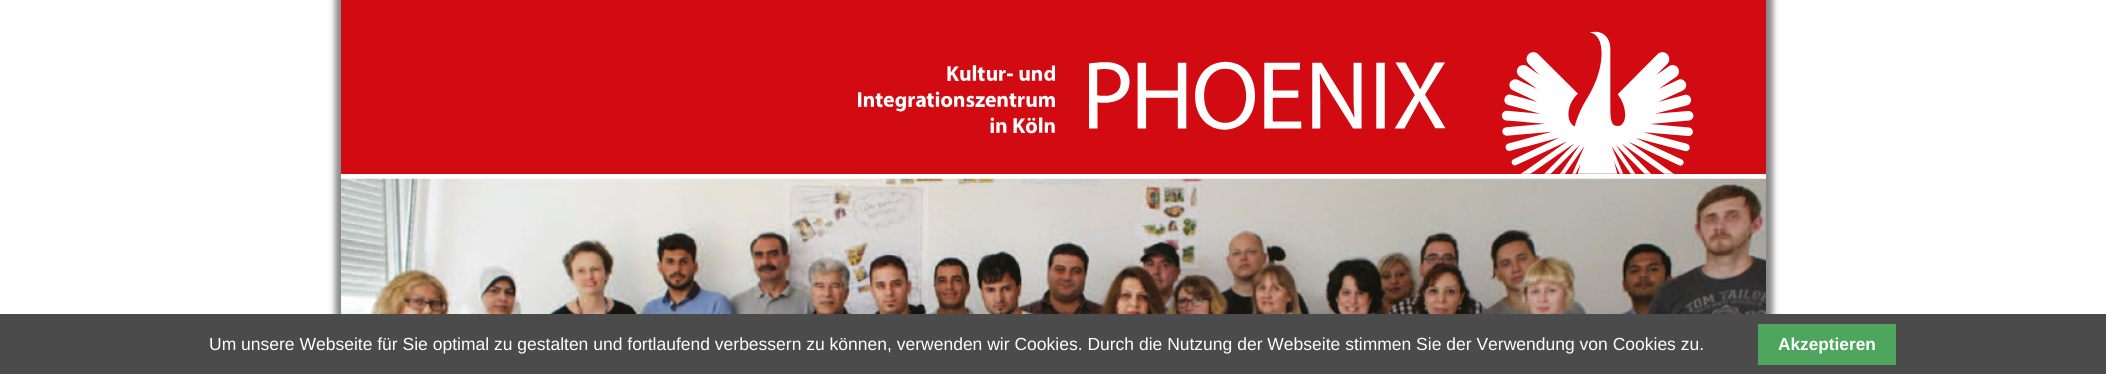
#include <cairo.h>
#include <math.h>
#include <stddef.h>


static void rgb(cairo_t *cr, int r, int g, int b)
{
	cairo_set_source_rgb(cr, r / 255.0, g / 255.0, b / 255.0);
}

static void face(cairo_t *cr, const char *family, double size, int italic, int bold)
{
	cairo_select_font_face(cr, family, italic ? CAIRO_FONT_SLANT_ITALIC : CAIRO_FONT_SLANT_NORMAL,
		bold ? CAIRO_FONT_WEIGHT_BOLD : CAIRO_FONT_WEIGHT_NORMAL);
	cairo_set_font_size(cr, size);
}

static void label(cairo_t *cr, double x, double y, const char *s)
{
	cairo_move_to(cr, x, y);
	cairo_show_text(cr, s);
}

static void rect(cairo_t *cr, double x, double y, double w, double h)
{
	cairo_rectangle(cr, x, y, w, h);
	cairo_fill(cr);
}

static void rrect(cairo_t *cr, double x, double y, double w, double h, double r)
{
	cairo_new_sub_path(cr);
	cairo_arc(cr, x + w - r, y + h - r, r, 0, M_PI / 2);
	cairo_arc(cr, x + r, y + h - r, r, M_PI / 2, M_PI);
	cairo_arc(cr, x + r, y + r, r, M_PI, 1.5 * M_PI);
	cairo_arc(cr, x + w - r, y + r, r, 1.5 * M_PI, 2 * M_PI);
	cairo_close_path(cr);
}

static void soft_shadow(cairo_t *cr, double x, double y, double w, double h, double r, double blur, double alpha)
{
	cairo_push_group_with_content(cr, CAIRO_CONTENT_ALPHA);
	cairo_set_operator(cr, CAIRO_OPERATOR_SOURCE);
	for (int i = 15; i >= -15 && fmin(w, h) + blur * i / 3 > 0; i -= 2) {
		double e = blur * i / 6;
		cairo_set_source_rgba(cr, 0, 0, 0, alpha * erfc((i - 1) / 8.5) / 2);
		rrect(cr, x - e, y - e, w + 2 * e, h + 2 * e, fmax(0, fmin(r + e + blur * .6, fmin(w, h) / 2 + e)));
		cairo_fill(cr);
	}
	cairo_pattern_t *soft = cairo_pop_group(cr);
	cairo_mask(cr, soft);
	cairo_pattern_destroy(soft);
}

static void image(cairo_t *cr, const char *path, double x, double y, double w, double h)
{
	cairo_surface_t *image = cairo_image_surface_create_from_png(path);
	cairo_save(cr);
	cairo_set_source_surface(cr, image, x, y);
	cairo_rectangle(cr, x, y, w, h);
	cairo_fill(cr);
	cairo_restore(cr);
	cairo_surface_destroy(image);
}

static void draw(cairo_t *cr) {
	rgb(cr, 255, 255, 255);
	cairo_paint(cr);
	rgb(cr, 136, 136, 136);
	soft_shadow(cr, 335, -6, 1438, 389, 0, 3, 1);
	rgb(cr, 210, 10, 17);
	rect(cr, 341, 0, 1425, 174);
	image(cr, "image0.png", 858, 31, 836, 143);
	rgb(cr, 255, 255, 255);
	rect(cr, 341, 174, 1425, 5);
	image(cr, "image1.png", 341, 178, 1425, 136);
	rgb(cr, 75, 75, 75);
	rect(cr, 0, 314, 2106, 60);
	face(cr, "Liberation Sans", 17.5, 0, 0);
	rgb(cr, 255, 255, 255);
	label(cr, 209, 350, "Um unsere Webseite für Sie optimal zu gestalten und fortlaufend verbessern zu können, verwenden wir Cookies. Durch die Nutzung der Webseite stimmen Sie der Verwendung von Cookies zu.");
	rgb(cr, 78, 165, 94);
	rect(cr, 1758, 324, 138, 41);
	face(cr, "Liberation Sans", 17.25, 0, 1);
	rgb(cr, 255, 255, 255);
	label(cr, 1778, 350, "Akzeptieren");
}

int main(void) {
	cairo_surface_t *surface = cairo_image_surface_create(CAIRO_FORMAT_RGB24, 2106, 374);
	cairo_t *cr = cairo_create(surface);
	cairo_font_options_t *options = cairo_font_options_create();
	cairo_font_options_set_hint_metrics(options, CAIRO_HINT_METRICS_OFF);
	cairo_font_options_set_hint_style(options, CAIRO_HINT_STYLE_NONE);
	cairo_set_font_options(cr, options);
	cairo_set_miter_limit(cr, 4);
	draw(cr);
	cairo_surface_write_to_png(surface, "render.png");
	cairo_font_options_destroy(options);
	cairo_destroy(cr);
	cairo_surface_destroy(surface);
	return 0;
}
